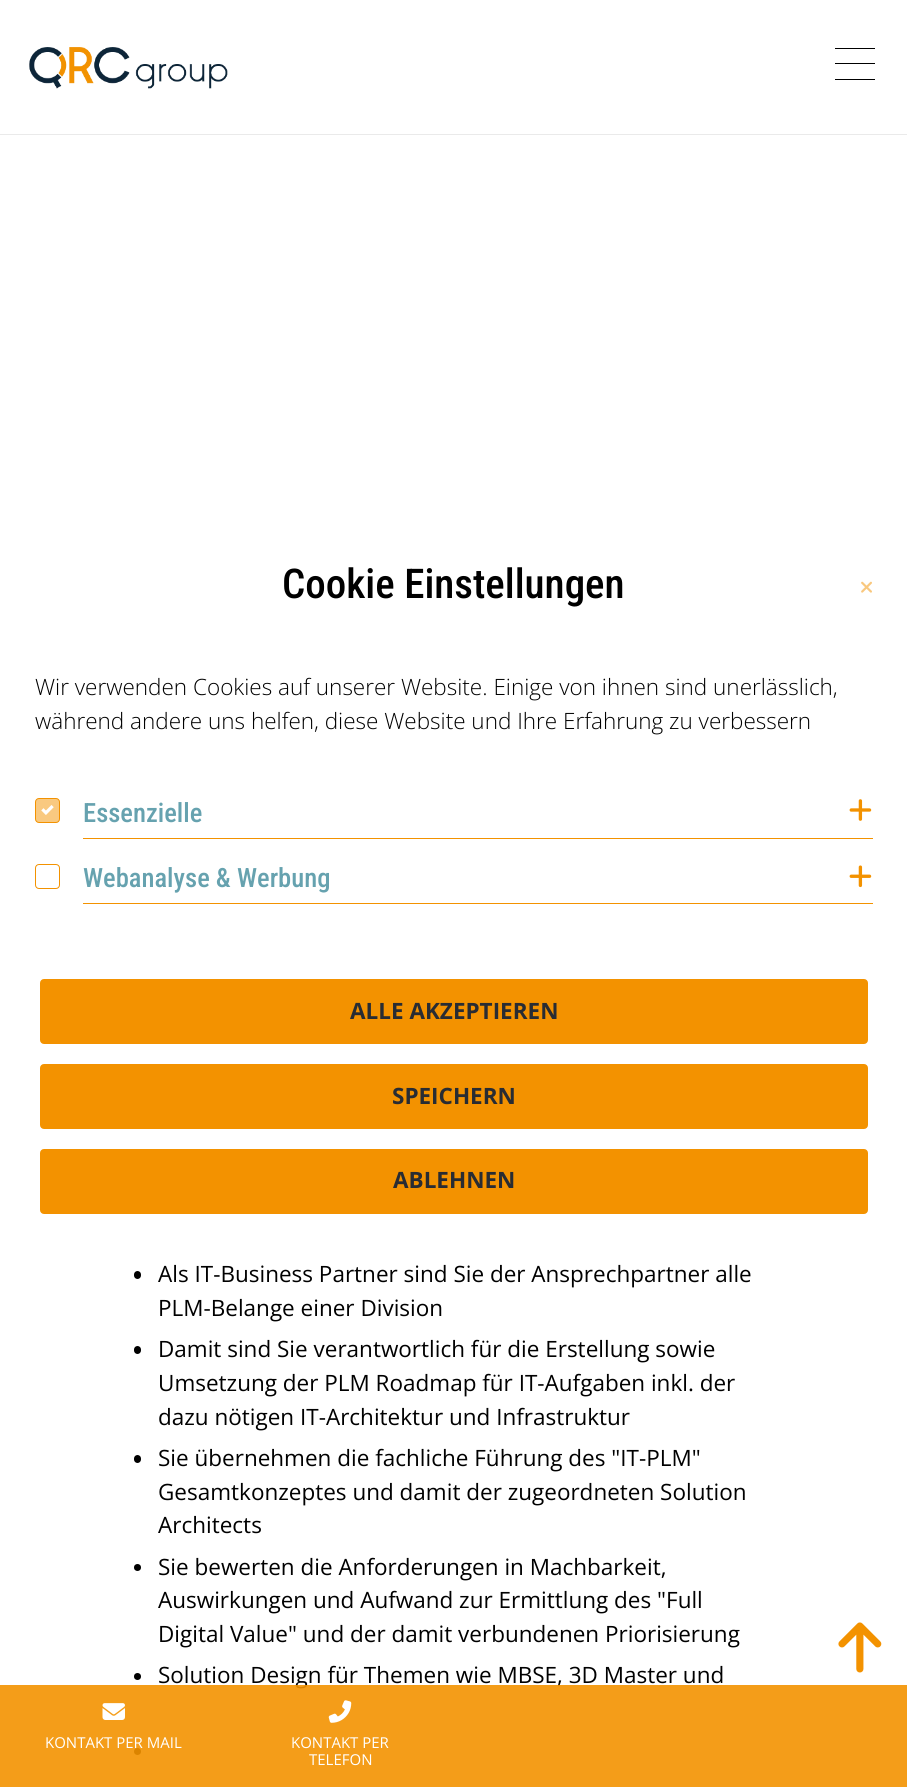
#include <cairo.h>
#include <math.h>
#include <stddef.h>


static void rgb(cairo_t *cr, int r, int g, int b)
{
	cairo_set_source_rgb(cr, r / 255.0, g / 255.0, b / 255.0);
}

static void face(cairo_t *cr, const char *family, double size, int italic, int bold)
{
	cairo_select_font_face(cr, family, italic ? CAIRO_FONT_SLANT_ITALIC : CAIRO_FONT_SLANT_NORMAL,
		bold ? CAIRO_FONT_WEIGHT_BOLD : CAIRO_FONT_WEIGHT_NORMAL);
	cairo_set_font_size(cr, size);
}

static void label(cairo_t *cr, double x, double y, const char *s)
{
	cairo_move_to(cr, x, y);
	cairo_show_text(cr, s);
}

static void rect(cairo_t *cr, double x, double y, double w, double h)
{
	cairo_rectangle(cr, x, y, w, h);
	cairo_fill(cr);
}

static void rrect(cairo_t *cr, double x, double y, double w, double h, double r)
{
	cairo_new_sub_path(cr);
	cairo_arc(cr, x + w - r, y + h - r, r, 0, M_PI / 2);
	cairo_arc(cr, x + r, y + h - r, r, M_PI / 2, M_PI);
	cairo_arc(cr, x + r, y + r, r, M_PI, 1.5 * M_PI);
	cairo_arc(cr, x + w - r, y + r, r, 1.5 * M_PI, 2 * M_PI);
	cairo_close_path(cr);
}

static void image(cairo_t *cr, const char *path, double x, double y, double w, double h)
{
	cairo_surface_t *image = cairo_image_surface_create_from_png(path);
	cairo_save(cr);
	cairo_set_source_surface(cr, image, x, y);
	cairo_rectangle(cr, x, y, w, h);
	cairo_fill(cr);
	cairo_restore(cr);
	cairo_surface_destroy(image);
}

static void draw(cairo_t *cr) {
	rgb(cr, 255, 255, 255);
	cairo_paint(cr);
	face(cr, "Roboto Condensed Medium", 41, 0, 0);
	rgb(cr, 0, 0, 0);
	label(cr, 282, 598, "Cookie Einstellungen");
	image(cr, "image0.png", 861, 581, 11, 12);
	face(cr, "Open Sans Light", 22.5, 0, 0);
	label(cr, 35, 695, "Wir verwenden Cookies auf unserer Website. Einige von ihnen sind unerlässlich,");
	label(cr, 35, 729, "während andere uns helfen, diese Website und Ihre Erfahrung zu verbessern");
	rgb(cr, 249, 201, 128);
	rrect(cr, 35.5, 798.5, 24, 24, 3.5);
	cairo_fill_preserve(cr);
	rgb(cr, 243, 146, 0);
	cairo_set_line_width(cr, 1);
	cairo_stroke(cr);
	image(cr, "image1.png", 41, 805, 13, 10);
	rect(cr, 83, 838, 790, 1);
	face(cr, "Roboto Condensed Medium", 26.6, 0, 0);
	rgb(cr, 102, 162, 175);
	label(cr, 83, 822, "Essenzielle");
	image(cr, "image2.png", 849, 799, 23, 22);
	rrect(cr, 35.5, 864.5, 24, 24, 3.5);
	rgb(cr, 243, 146, 0);
	cairo_stroke(cr);
	rect(cr, 83, 903, 790, 1);
	rgb(cr, 102, 162, 175);
	label(cr, 83, 887, "Webanalyse & Werbung");
	image(cr, "image3.png", 849, 865, 23, 23);
	rgb(cr, 243, 146, 0);
	rrect(cr, 41.5, 980.5, 825, 62, 2.5);
	cairo_fill_preserve(cr);
	cairo_set_line_width(cr, 3);
	cairo_stroke(cr);
	face(cr, "Open Sans", 22.5, 0, 1);
	rgb(cr, 40, 44, 51);
	label(cr, 350, 1019, "ALLE AKZEPTIEREN");
	rgb(cr, 243, 146, 0);
	rrect(cr, 41.5, 1065.5, 825, 62, 2.5);
	cairo_fill_preserve(cr);
	cairo_stroke(cr);
	rgb(cr, 40, 44, 51);
	label(cr, 392, 1104, "SPEICHERN");
	rgb(cr, 243, 146, 0);
	rrect(cr, 41.5, 1150.5, 825, 62, 2.5);
	cairo_fill_preserve(cr);
	cairo_stroke(cr);
	rgb(cr, 40, 44, 51);
	label(cr, 393, 1188, "ABLEHNEN");
	rgb(cr, 234, 234, 234);
	rect(cr, 0, 134, 907, 1);
	image(cr, "image4.png", 29, 47, 199, 42);
	rgb(cr, 0, 0, 0);
	rect(cr, 835, 48, 40, 1);
	rect(cr, 835, 63, 40, 1);
	rect(cr, 835, 79, 40, 1);
	rrect(cr, 134, 1271, 7, 8, 3.5);
	cairo_fill(cr);
	face(cr, "Open Sans", 22.5, 0, 0);
	label(cr, 158, 1282, "Als IT-Business Partner sind Sie der Ansprechpartner alle");
	label(cr, 158, 1316, "PLM-Belange einer Division");
	rrect(cr, 134, 1346, 7, 8, 3.5);
	cairo_fill(cr);
	label(cr, 158, 1357, "Damit sind Sie verantwortlich für die Erstellung sowie");
	label(cr, 158, 1391, "Umsetzung der PLM Roadmap für IT-Aufgaben inkl. der");
	label(cr, 158, 1425, "dazu nötigen IT-Architektur und Infrastruktur");
	rrect(cr, 134, 1455, 7, 8, 3.5);
	cairo_fill(cr);
	label(cr, 158, 1466, "Sie übernehmen die fachliche Führung des \"IT-PLM\"");
	label(cr, 158, 1500, "Gesamtkonzeptes und damit der zugeordneten Solution");
	label(cr, 158, 1533, "Architects");
	cairo_new_path(cr);
	cairo_arc(cr, 137.5, 1567.5, 3.5, 0, 2 * M_PI);
	cairo_fill(cr);
	label(cr, 158, 1575, "Sie bewerten die Anforderungen in Machbarkeit,");
	label(cr, 158, 1608, "Auswirkungen und Aufwand zur Ermittlung des \"Full");
	label(cr, 158, 1642, "Digital Value\" und der damit verbundenen Priorisierung");
	cairo_new_path(cr);
	cairo_arc(cr, 137.5, 1676.5, 3.5, 0, 2 * M_PI);
	cairo_fill(cr);
	label(cr, 158, 1683, "Solution Design für Themen wie MBSE, 3D Master und");
	cairo_new_path(cr);
	cairo_arc(cr, 137.5, 1751.5, 3.5, 0, 2 * M_PI);
	cairo_fill(cr);
	image(cr, "image5.png", 838, 1622, 44, 51);
	cairo_set_source_rgba(cr, 0.953, 0.573, 0, 0.9);
	rect(cr, 0, 1685, 907, 102);
	image(cr, "image6.png", 102, 1703, 23, 17);
	face(cr, "Open Sans", 15, 0, 0);
	rgb(cr, 255, 255, 255);
	label(cr, 45, 1748, "KONTAKT PER MAIL");
	image(cr, "image7.png", 328, 1700, 24, 23);
	label(cr, 291, 1748, "KONTAKT PER");
	label(cr, 309, 1765, "TELEFON");
}

int main(void) {
	cairo_surface_t *surface = cairo_image_surface_create(CAIRO_FORMAT_RGB24, 907, 1787);
	cairo_t *cr = cairo_create(surface);
	cairo_font_options_t *options = cairo_font_options_create();
	cairo_font_options_set_hint_metrics(options, CAIRO_HINT_METRICS_OFF);
	cairo_font_options_set_hint_style(options, CAIRO_HINT_STYLE_NONE);
	cairo_set_font_options(cr, options);
	cairo_set_miter_limit(cr, 4);
	draw(cr);
	cairo_surface_write_to_png(surface, "render.png");
	cairo_font_options_destroy(options);
	cairo_destroy(cr);
	cairo_surface_destroy(surface);
	return 0;
}
